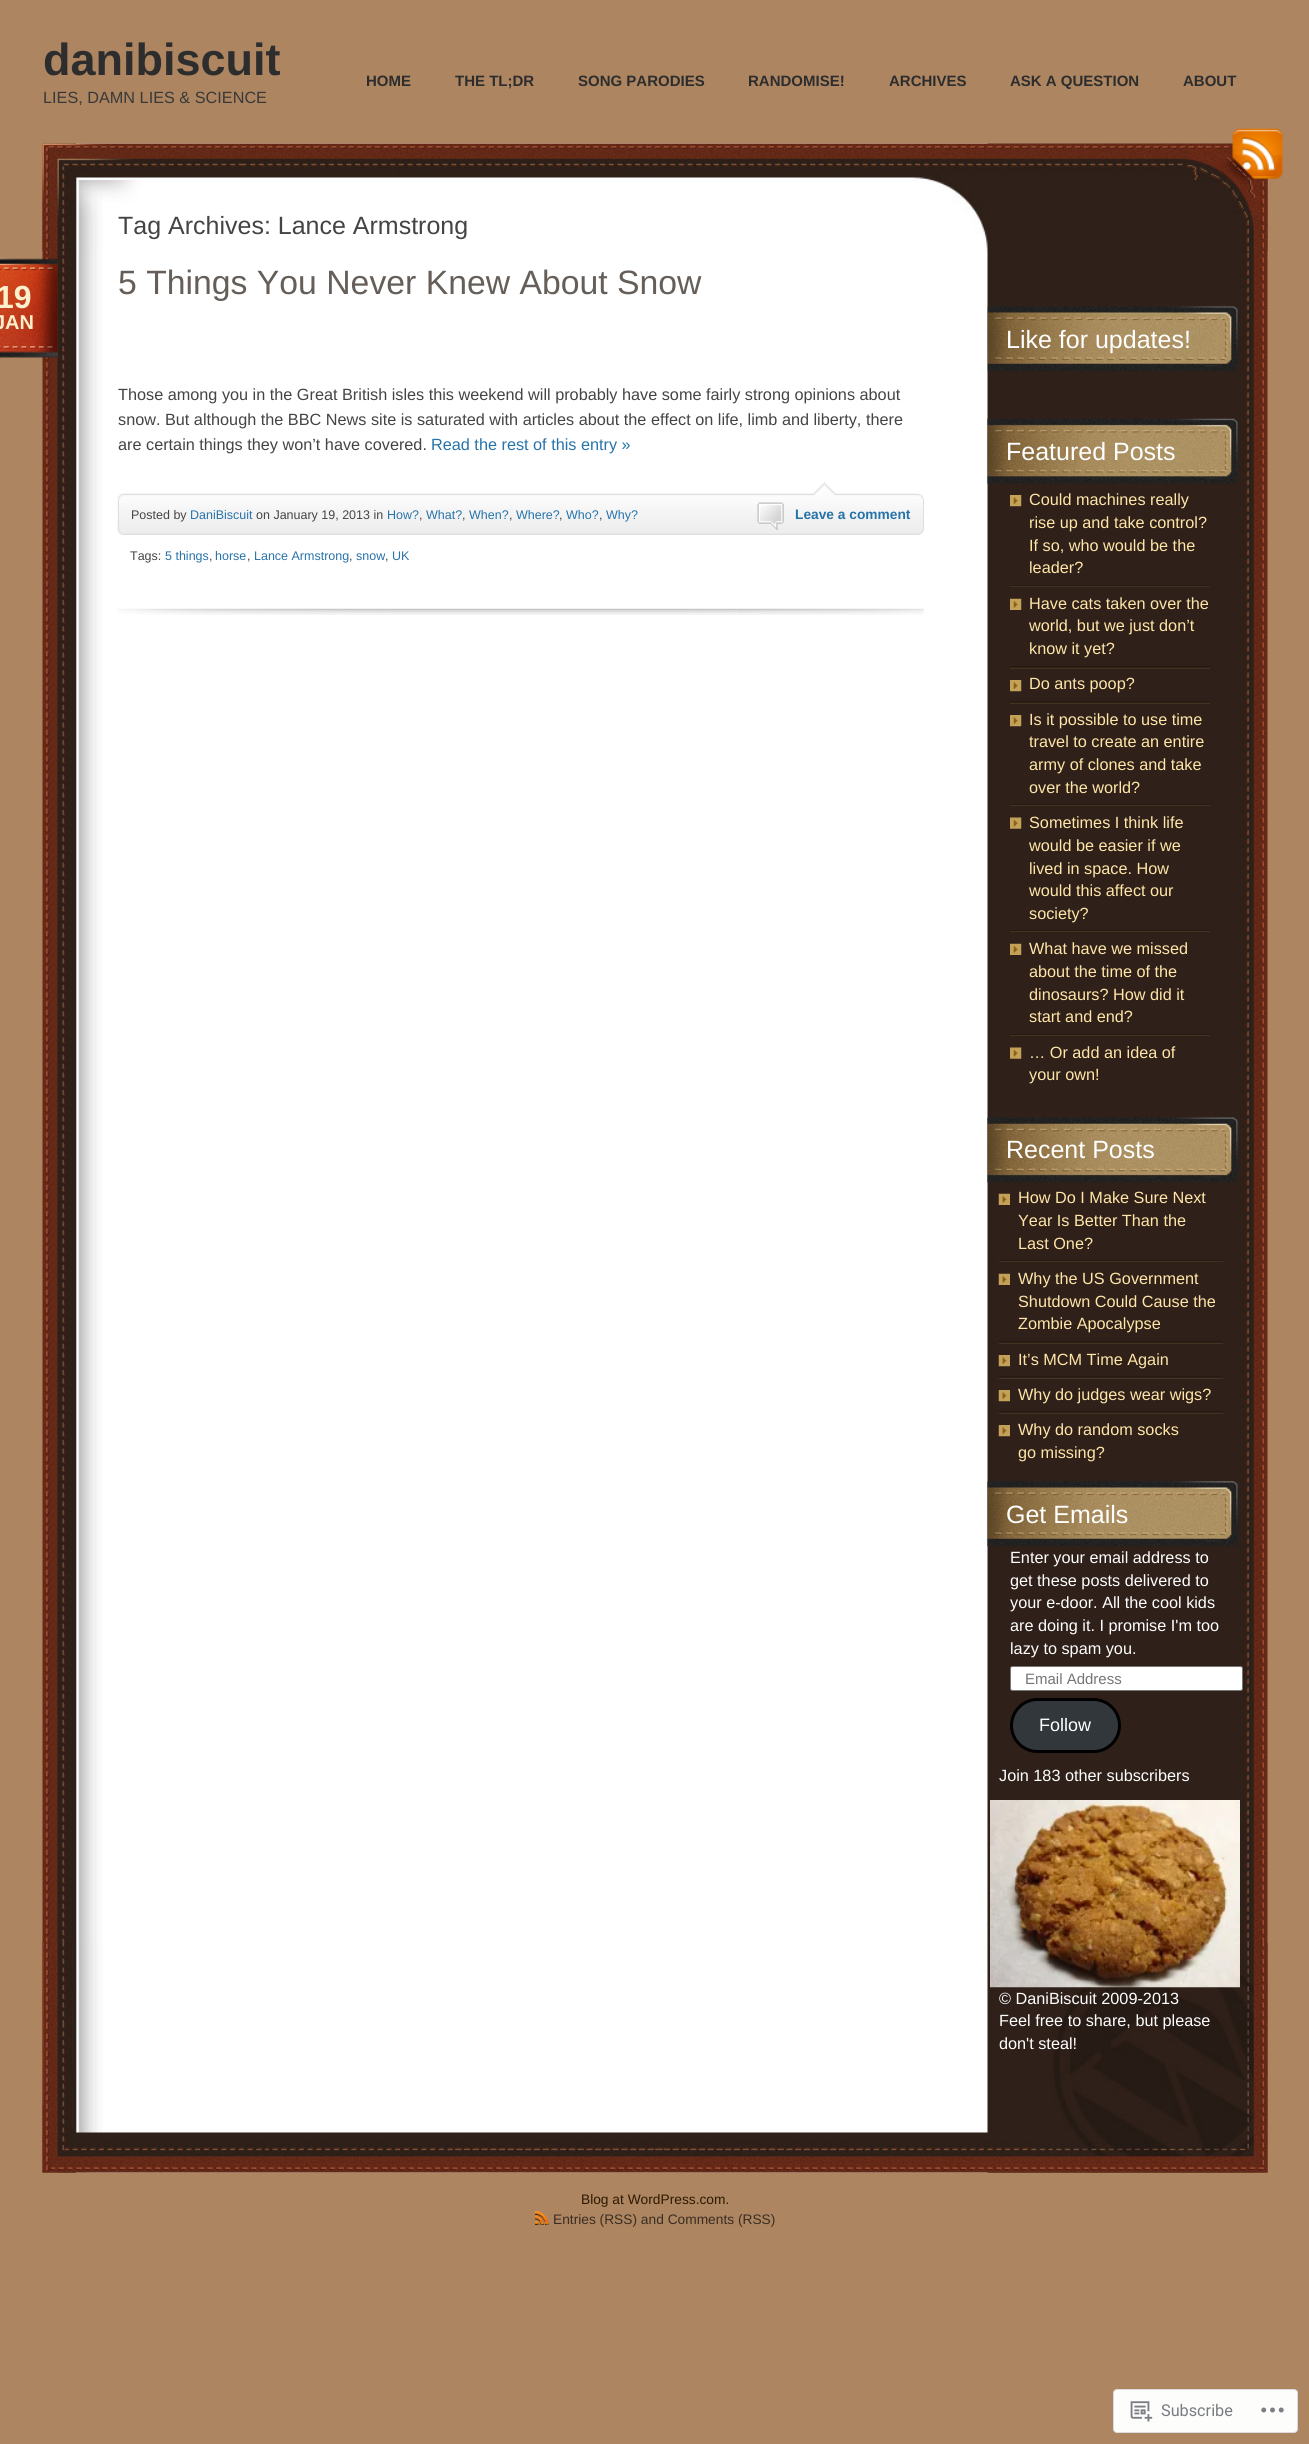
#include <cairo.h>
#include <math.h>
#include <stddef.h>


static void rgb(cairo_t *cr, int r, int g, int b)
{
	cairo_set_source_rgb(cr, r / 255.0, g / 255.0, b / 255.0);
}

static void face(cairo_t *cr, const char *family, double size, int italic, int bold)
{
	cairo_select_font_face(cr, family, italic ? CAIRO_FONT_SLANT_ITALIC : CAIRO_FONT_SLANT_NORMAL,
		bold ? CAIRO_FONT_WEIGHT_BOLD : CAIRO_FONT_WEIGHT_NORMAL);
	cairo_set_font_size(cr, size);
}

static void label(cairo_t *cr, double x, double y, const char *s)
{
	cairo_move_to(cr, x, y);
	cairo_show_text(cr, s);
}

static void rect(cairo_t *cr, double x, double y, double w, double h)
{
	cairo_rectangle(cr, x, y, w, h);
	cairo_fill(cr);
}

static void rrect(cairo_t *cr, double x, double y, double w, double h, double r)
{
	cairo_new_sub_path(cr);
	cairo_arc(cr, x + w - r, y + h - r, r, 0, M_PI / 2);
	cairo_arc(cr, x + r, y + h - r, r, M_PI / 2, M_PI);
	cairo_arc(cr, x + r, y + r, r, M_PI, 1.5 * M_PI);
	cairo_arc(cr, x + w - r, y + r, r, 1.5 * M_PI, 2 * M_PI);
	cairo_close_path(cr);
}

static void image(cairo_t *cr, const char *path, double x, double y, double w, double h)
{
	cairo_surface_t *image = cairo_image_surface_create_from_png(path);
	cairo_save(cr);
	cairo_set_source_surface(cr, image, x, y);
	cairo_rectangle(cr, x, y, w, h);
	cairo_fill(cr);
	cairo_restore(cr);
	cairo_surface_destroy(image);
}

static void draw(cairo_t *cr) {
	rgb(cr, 173, 133, 97);
	cairo_paint(cr);
	face(cr, "Liberation Sans", 45, 0, 1);
	rgb(cr, 45, 45, 45);
	label(cr, 43, 75, "danibiscuit");
	face(cr, "Liberation Sans", 16.25, 0, 0);
	rgb(cr, 56, 56, 56);
	label(cr, 43, 103, "LIES, DAMN LIES & SCIENCE");
	face(cr, "Liberation Sans", 15, 0, 1);
	rgb(cr, 45, 45, 45);
	label(cr, 366, 86, "HOME");
	label(cr, 455, 86, "THE TL;DR");
	label(cr, 578, 86, "SONG PARODIES");
	label(cr, 748, 86, "RANDOMISE!");
	label(cr, 889, 86, "ARCHIVES");
	label(cr, 1010, 86, "ASK A QUESTION");
	label(cr, 1183, 86, "ABOUT");
	image(cr, "image0.png", 42, 143, 1226, 2030);
	image(cr, "image2.png", 42, 143, 1226, 109);
	image(cr, "image1.png", 1220, 128, 63, 70);
	image(cr, "image3.png", 42, 1942, 1226, 231);
	face(cr, "Liberation Sans", 25, 0, 0);
	rgb(cr, 68, 68, 68);
	label(cr, 118, 234, "Tag Archives: Lance Armstrong");
	image(cr, "image4.png", 117, 608, 807, 7);
	image(cr, "image5.png", 0, 257, 58, 101);
	face(cr, "Liberation Sans", 32, 0, 1);
	rgb(cr, 254, 239, 204);
	label(cr, -4, 308, "19");
	face(cr, "Liberation Sans", 20, 0, 1);
	label(cr, -6, 329, "JAN");
	face(cr, "Liberation Sans", 33.75, 0, 0);
	rgb(cr, 102, 95, 89);
	label(cr, 118, 294, "5 Things You Never Knew About Snow");
	face(cr, "Liberation Sans", 16.25, 0, 0);
	rgb(cr, 68, 68, 68);
	label(cr, 118, 400, "Those among you in the Great British isles this weekend will probably have some fairly strong opinions about");
	label(cr, 118, 425, "snow. But although the BBC News site is saturated with articles about the effect on life, limb and liberty, there");
	label(cr, 118, 450, "are certain things they won’t have covered.");
	rgb(cr, 38, 115, 170);
	label(cr, 431, 450, "Read the rest of this entry »");
	image(cr, "image6.png", 117, 482, 807, 17);
	rgb(cr, 250, 250, 250);
	rect(cr, 119, 499, 804, 4);
	image(cr, "image7.png", 117, 503, 806, 27);
	rgb(cr, 222, 222, 222);
	rect(cr, 923, 499, 1, 31);
	rect(cr, 118, 499, 1, 31);
	face(cr, "Liberation Sans", 12.5, 0, 0);
	rgb(cr, 68, 68, 68);
	label(cr, 131, 519, "Posted by");
	rgb(cr, 38, 115, 170);
	label(cr, 190, 519, "DaniBiscuit");
	rgb(cr, 68, 68, 68);
	label(cr, 256, 519, "on January 19, 2013 in");
	rgb(cr, 38, 115, 170);
	label(cr, 387, 519, "How?");
	rgb(cr, 68, 68, 68);
	label(cr, 419, 519, ",");
	rgb(cr, 38, 115, 170);
	label(cr, 426, 519, "What?");
	rgb(cr, 68, 68, 68);
	label(cr, 462, 519, ",");
	rgb(cr, 38, 115, 170);
	label(cr, 469, 519, "When?");
	rgb(cr, 68, 68, 68);
	label(cr, 509, 519, ",");
	rgb(cr, 38, 115, 170);
	label(cr, 516, 519, "Where?");
	rgb(cr, 68, 68, 68);
	label(cr, 559, 519, ",");
	rgb(cr, 38, 115, 170);
	label(cr, 566, 519, "Who?");
	rgb(cr, 68, 68, 68);
	label(cr, 599, 519, ",");
	rgb(cr, 38, 115, 170);
	label(cr, 606, 519, "Why?");
	image(cr, "image8.png", 757, 502, 27, 28);
	face(cr, "Liberation Sans", 13.75, 0, 1);
	label(cr, 795, 519, "Leave a comment");
	image(cr, "image9.png", 117, 530, 807, 5);
	face(cr, "Liberation Sans", 12.5, 0, 0);
	rgb(cr, 68, 68, 68);
	label(cr, 130, 560, "Tags:");
	rgb(cr, 38, 115, 170);
	label(cr, 165, 560, "5 things");
	rgb(cr, 68, 68, 68);
	label(cr, 209, 560, ",");
	rgb(cr, 38, 115, 170);
	label(cr, 215, 560, "horse");
	rgb(cr, 68, 68, 68);
	label(cr, 247, 560, ",");
	rgb(cr, 38, 115, 170);
	label(cr, 254, 560, "Lance Armstrong");
	rgb(cr, 68, 68, 68);
	label(cr, 349, 560, ",");
	rgb(cr, 38, 115, 170);
	label(cr, 356, 560, "snow");
	rgb(cr, 68, 68, 68);
	label(cr, 385, 560, ",");
	rgb(cr, 38, 115, 170);
	label(cr, 392, 560, "UK");
	image(cr, "image10.png", 987, 306, 251, 66);
	face(cr, "Liberation Sans", 25, 0, 0);
	rgb(cr, 255, 255, 255);
	label(cr, 1006, 348, "Like for updates!");
	image(cr, "image11.png", 987, 418, 251, 66);
	label(cr, 1006, 460, "Featured Posts");
	image(cr, "image12.png", 1010, 495, 12, 12);
	rgb(cr, 39, 25, 19);
	rect(cr, 1010, 585, 200, 1);
	face(cr, "Liberation Sans", 16.25, 0, 0);
	rgb(cr, 255, 230, 168);
	label(cr, 1029, 505, "Could machines really");
	label(cr, 1029, 528, "rise up and take control?");
	label(cr, 1029, 551, "If so, who would be the");
	label(cr, 1029, 573, "leader?");
	image(cr, "image13.png", 1010, 598, 12, 12);
	rgb(cr, 69, 51, 34);
	rect(cr, 1010, 586, 200, 1);
	rgb(cr, 39, 25, 19);
	rect(cr, 1010, 666, 200, 1);
	rgb(cr, 255, 230, 168);
	label(cr, 1029, 609, "Have cats taken over the");
	label(cr, 1029, 631, "world, but we just don’t");
	label(cr, 1029, 654, "know it yet?");
	image(cr, "image12.png", 1010, 680, 12, 12);
	rgb(cr, 69, 51, 34);
	rect(cr, 1010, 668, 200, 1);
	rgb(cr, 39, 25, 19);
	rect(cr, 1010, 701, 200, 1);
	rgb(cr, 255, 230, 168);
	label(cr, 1029, 689, "Do ants poop?");
	image(cr, "image12.png", 1010, 715, 12, 12);
	rgb(cr, 69, 51, 34);
	rect(cr, 1010, 703, 200, 1);
	rgb(cr, 39, 25, 19);
	rect(cr, 1010, 804, 200, 1);
	rgb(cr, 255, 230, 168);
	label(cr, 1029, 725, "Is it possible to use time");
	label(cr, 1029, 747, "travel to create an entire");
	label(cr, 1029, 770, "army of clones and take");
	label(cr, 1029, 793, "over the world?");
	image(cr, "image14.png", 1010, 817, 12, 12);
	rgb(cr, 69, 51, 34);
	rect(cr, 1010, 805, 200, 1);
	rgb(cr, 39, 25, 19);
	rect(cr, 1010, 930, 200, 1);
	rgb(cr, 255, 230, 168);
	label(cr, 1029, 828, "Sometimes I think life");
	label(cr, 1029, 851, "would be easier if we");
	label(cr, 1029, 874, "lived in space. How");
	label(cr, 1029, 896, "would this affect our");
	label(cr, 1029, 919, "society?");
	image(cr, "image13.png", 1010, 943, 12, 12);
	rgb(cr, 69, 51, 34);
	rect(cr, 1010, 931, 200, 1);
	rgb(cr, 39, 25, 19);
	rect(cr, 1010, 1034, 200, 1);
	rgb(cr, 255, 230, 168);
	label(cr, 1029, 954, "What have we missed");
	label(cr, 1029, 977, "about the time of the");
	label(cr, 1029, 1000, "dinosaurs? How did it");
	label(cr, 1029, 1022, "start and end?");
	image(cr, "image14.png", 1010, 1047, 12, 12);
	rgb(cr, 69, 51, 34);
	rect(cr, 1010, 1035, 200, 1);
	rgb(cr, 255, 230, 168);
	label(cr, 1029, 1058, "… Or add an idea of");
	label(cr, 1029, 1080, "your own!");
	image(cr, "image15.png", 987, 1117, 251, 66);
	face(cr, "Liberation Sans", 25, 0, 0);
	rgb(cr, 255, 255, 255);
	label(cr, 1006, 1158, "Recent Posts");
	image(cr, "image16.png", 998, 1193, 12, 12);
	rgb(cr, 39, 25, 19);
	rect(cr, 999, 1260, 224, 1);
	face(cr, "Liberation Sans", 16.25, 0, 0);
	rgb(cr, 255, 230, 168);
	label(cr, 1018, 1203, "How Do I Make Sure Next");
	label(cr, 1018, 1226, "Year Is Better Than the");
	label(cr, 1018, 1249, "Last One?");
	image(cr, "image16.png", 998, 1273, 12, 12);
	rgb(cr, 69, 51, 34);
	rect(cr, 999, 1261, 224, 1);
	rgb(cr, 39, 25, 19);
	rect(cr, 999, 1341, 224, 1);
	rgb(cr, 255, 230, 168);
	label(cr, 1018, 1284, "Why the US Government");
	label(cr, 1018, 1307, "Shutdown Could Cause the");
	label(cr, 1018, 1329, "Zombie Apocalypse");
	image(cr, "image17.png", 998, 1355, 12, 12);
	rgb(cr, 69, 51, 34);
	rect(cr, 999, 1343, 224, 1);
	rgb(cr, 39, 25, 19);
	rect(cr, 999, 1376, 224, 1);
	rgb(cr, 255, 230, 168);
	label(cr, 1018, 1365, "It’s MCM Time Again");
	image(cr, "image17.png", 998, 1390, 12, 12);
	rgb(cr, 69, 51, 34);
	rect(cr, 999, 1378, 224, 1);
	rgb(cr, 39, 25, 19);
	rect(cr, 999, 1411, 224, 1);
	rgb(cr, 255, 230, 168);
	label(cr, 1018, 1400, "Why do judges wear wigs?");
	image(cr, "image17.png", 998, 1425, 12, 12);
	rgb(cr, 69, 51, 34);
	rect(cr, 999, 1413, 224, 1);
	rgb(cr, 255, 230, 168);
	label(cr, 1018, 1435, "Why do random socks");
	label(cr, 1018, 1458, "go missing?");
	image(cr, "image18.png", 987, 1481, 251, 66);
	face(cr, "Liberation Sans", 25, 0, 0);
	rgb(cr, 255, 255, 255);
	label(cr, 1006, 1523, "Get Emails");
	face(cr, "Liberation Sans", 16.25, 0, 0);
	label(cr, 1010, 1563, "Enter your email address to");
	label(cr, 1010, 1586, "get these posts delivered to");
	label(cr, 1010, 1608, "your e-door. All the cool kids");
	label(cr, 1010, 1631, "are doing it. I promise I'm too");
	label(cr, 1010, 1654, "lazy to spam you.");
	rrect(cr, 1010.5, 1666.5, 232, 24, 2);
	cairo_fill_preserve(cr);
	rgb(cr, 118, 118, 118);
	cairo_set_line_width(cr, 1);
	cairo_stroke(cr);
	face(cr, "Liberation Sans", 15, 0, 0);
	rgb(cr, 117, 117, 117);
	label(cr, 1025, 1684, "Email Address");
	rgb(cr, 50, 55, 60);
	rrect(cr, 1011.5, 1699.5, 108, 52, 26);
	cairo_fill_preserve(cr);
	rgb(cr, 0, 0, 0);
	cairo_set_line_width(cr, 3);
	cairo_stroke(cr);
	face(cr, "Liberation Sans", 18, 0, 0);
	rgb(cr, 255, 255, 255);
	label(cr, 1039, 1731, "Follow");
	face(cr, "Liberation Sans", 16.25, 0, 0);
	label(cr, 999, 1781, "Join 183 other subscribers");
	image(cr, "image19.png", 990, 1800, 250, 188);
	label(cr, 999, 2004, "© DaniBiscuit 2009-2013");
	label(cr, 999, 2026, "Feel free to share, but please");
	label(cr, 999, 2049, "don't steal!");
	face(cr, "Liberation Sans", 13.75, 0, 0);
	rgb(cr, 45, 25, 0);
	label(cr, 581, 2204, "Blog at WordPress.com.");
	image(cr, "image20.png", 535, 2211, 14, 14);
	rgb(cr, 57, 45, 34);
	label(cr, 553, 2224, "Entries (RSS) and Comments (RSS)");
	rgb(cr, 253, 253, 252);
	rrect(cr, 1113.5, 2389.5, 184, 43, 3.5);
	cairo_fill_preserve(cr);
	rgb(cr, 219, 218, 220);
	cairo_set_line_width(cr, 1);
	cairo_stroke(cr);
	image(cr, "image21.png", 1130, 2401, 23, 21);
	face(cr, "Roboto", 16.25, 0, 0);
	rgb(cr, 121, 124, 129);
	label(cr, 1161, 2416, "Subscribe");
	image(cr, "image22.png", 1261, 2407, 23, 6);
}

int main(void) {
	cairo_surface_t *surface = cairo_image_surface_create(CAIRO_FORMAT_RGB24, 1309, 2444);
	cairo_t *cr = cairo_create(surface);
	cairo_font_options_t *options = cairo_font_options_create();
	cairo_font_options_set_hint_metrics(options, CAIRO_HINT_METRICS_OFF);
	cairo_font_options_set_hint_style(options, CAIRO_HINT_STYLE_NONE);
	cairo_set_font_options(cr, options);
	cairo_set_miter_limit(cr, 4);
	draw(cr);
	cairo_surface_write_to_png(surface, "render.png");
	cairo_font_options_destroy(options);
	cairo_destroy(cr);
	cairo_surface_destroy(surface);
	return 0;
}
